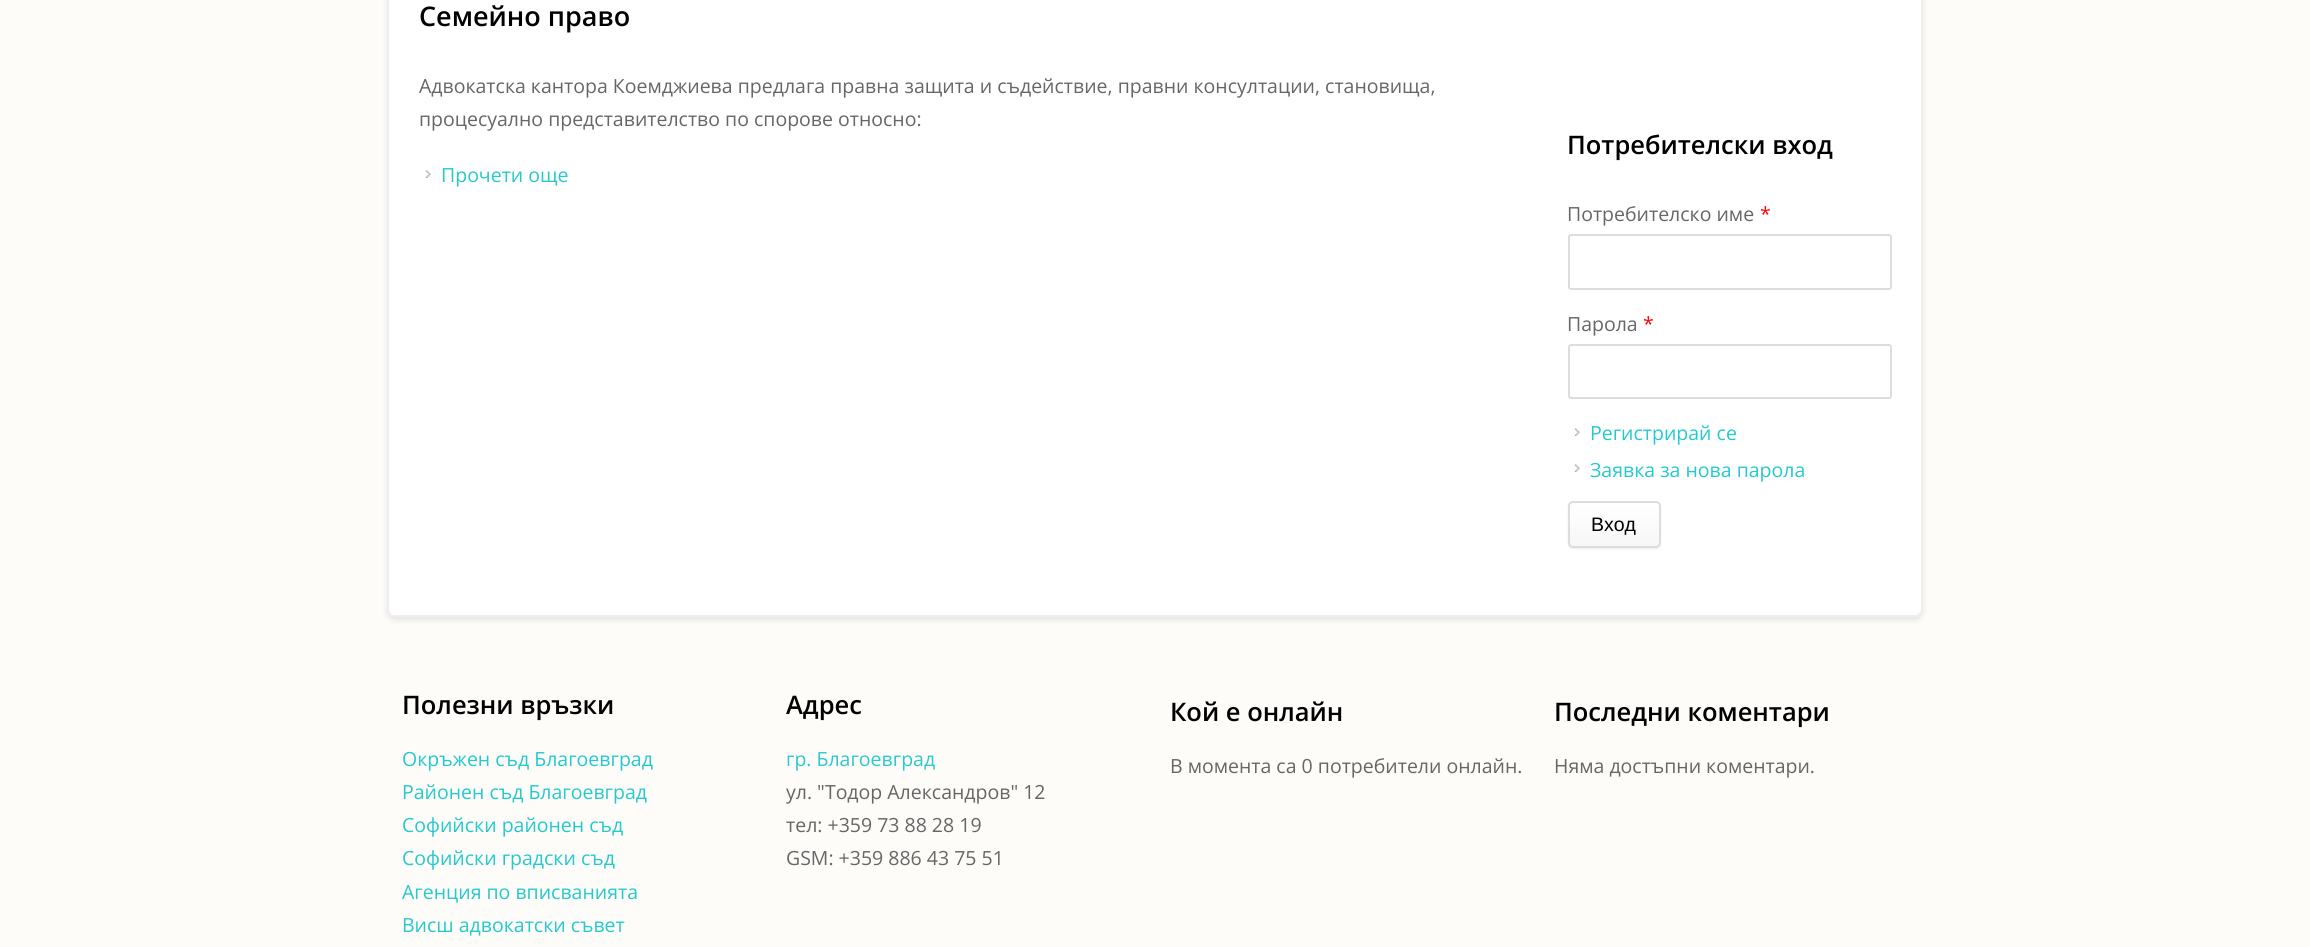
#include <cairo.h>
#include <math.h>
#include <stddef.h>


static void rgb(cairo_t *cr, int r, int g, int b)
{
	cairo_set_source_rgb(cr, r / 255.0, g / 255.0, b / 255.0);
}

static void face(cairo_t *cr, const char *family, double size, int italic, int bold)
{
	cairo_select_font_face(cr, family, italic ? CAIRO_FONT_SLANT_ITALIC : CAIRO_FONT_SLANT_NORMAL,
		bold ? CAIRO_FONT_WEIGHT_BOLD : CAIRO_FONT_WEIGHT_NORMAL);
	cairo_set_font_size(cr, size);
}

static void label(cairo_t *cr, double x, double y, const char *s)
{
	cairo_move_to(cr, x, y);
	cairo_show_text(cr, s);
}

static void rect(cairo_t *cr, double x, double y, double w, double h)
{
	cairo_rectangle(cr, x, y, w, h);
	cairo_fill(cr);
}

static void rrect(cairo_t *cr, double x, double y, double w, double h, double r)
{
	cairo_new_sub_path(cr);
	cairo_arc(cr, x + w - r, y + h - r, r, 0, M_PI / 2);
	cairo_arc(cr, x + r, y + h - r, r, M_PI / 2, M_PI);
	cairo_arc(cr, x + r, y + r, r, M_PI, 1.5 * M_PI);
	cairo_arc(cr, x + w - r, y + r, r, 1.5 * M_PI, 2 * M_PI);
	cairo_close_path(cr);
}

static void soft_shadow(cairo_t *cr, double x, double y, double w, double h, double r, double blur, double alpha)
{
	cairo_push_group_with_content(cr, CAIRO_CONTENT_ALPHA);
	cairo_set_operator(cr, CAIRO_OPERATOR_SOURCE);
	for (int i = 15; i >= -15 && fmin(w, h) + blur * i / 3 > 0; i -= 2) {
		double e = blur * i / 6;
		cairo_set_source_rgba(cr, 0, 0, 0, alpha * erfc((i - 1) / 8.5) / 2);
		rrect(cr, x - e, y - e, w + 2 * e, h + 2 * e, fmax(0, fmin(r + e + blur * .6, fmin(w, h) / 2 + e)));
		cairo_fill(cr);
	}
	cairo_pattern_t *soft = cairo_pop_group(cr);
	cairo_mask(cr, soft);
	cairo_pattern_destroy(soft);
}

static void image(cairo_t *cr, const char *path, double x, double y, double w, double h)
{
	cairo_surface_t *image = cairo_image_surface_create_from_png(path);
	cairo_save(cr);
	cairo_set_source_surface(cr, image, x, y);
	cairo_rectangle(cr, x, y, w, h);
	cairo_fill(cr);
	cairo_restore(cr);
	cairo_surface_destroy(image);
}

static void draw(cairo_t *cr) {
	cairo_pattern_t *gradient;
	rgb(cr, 253, 252, 249);
	cairo_paint(cr);
	rgb(cr, 0, 0, 0);
	soft_shadow(cr, 387, -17, 1536, 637, 8, 3, 0.1);
	rgb(cr, 255, 255, 255);
	rrect(cr, 388, -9, 1534, 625, 7);
	cairo_fill_preserve(cr);
	rgb(cr, 238, 238, 238);
	cairo_stroke(cr);
	face(cr, "Open Sans SemiBold", 27, 0, 0);
	rgb(cr, 0, 0, 0);
	label(cr, 419, 26, "Семейно право");
	face(cr, "Open Sans", 19.5, 0, 0);
	rgb(cr, 102, 102, 102);
	label(cr, 419, 93, "Адвокатска кантора Коемджиева предлага правна защита и съдействие, правни консултации, становища,");
	label(cr, 419, 126, "процесуално представителство по спорове относно:");
	image(cr, "image0.png", 425, 170, 6, 8);
	rgb(cr, 36, 201, 207);
	label(cr, 441, 182, "Прочети още");
	face(cr, "Open Sans SemiBold", 25.5, 0, 0);
	rgb(cr, 0, 0, 0);
	label(cr, 1567, 154, "Потребителски вход");
	face(cr, "Open Sans", 19.5, 0, 0);
	rgb(cr, 102, 102, 102);
	label(cr, 1567, 221, "Потребителско име");
	rgb(cr, 255, 0, 0);
	label(cr, 1760, 221, "*");
	rrect(cr, 1569, 235, 322, 54, 2);
	rgb(cr, 221, 221, 221);
	cairo_stroke(cr);
	rgb(cr, 102, 102, 102);
	label(cr, 1567, 331, "Парола");
	rgb(cr, 255, 0, 0);
	label(cr, 1643, 331, "*");
	rrect(cr, 1569, 345, 322, 53, 2);
	rgb(cr, 221, 221, 221);
	cairo_stroke(cr);
	image(cr, "image1.png", 1574, 428, 6, 8);
	rgb(cr, 36, 201, 207);
	label(cr, 1590, 440, "Регистрирай се");
	image(cr, "image1.png", 1574, 464, 6, 8);
	label(cr, 1590, 477, "Заявка за нова парола");
	rgb(cr, 180, 180, 180);
	soft_shadow(cr, 1568, 503, 93, 46, 5, 1, 0.2);
	cairo_save(cr);
	rrect(cr, 1568, 501, 93, 47, 5);
	cairo_clip(cr);
	gradient = cairo_pattern_create_linear(1614, 546, 1614, 503);
	cairo_pattern_add_color_stop_rgba(gradient, 0, 0.969, 0.969, 0.969, 1);
	cairo_pattern_add_color_stop_rgba(gradient, 1, 1, 1, 1, 1);
	cairo_set_source(cr, gradient);
	cairo_pattern_destroy(gradient);
	rect(cr, 1568, 503, 93, 43);
	cairo_restore(cr);
	rrect(cr, 1569, 502, 91, 45, 4);
	rgb(cr, 221, 221, 221);
	cairo_stroke(cr);
	face(cr, "Liberation Sans", 19.5, 0, 0);
	rgb(cr, 0, 0, 0);
	label(cr, 1591, 531, "Вход");
	face(cr, "Open Sans SemiBold", 25.5, 0, 0);
	label(cr, 402, 714, "Полезни връзки");
	face(cr, "Open Sans", 19.5, 0, 0);
	rgb(cr, 36, 201, 207);
	label(cr, 402, 766, "Окръжен съд Благоевград");
	label(cr, 402, 799, "Районен съд Благоевград");
	label(cr, 402, 832, "Софийски районен съд");
	label(cr, 402, 865, "Софийски градски съд");
	label(cr, 402, 899, "Агенция по вписванията");
	label(cr, 402, 932, "Висш адвокатски съвет");
	face(cr, "Open Sans SemiBold", 25.5, 0, 0);
	rgb(cr, 0, 0, 0);
	label(cr, 786, 714, "Адрес");
	face(cr, "Open Sans", 19.5, 0, 0);
	rgb(cr, 42, 201, 207);
	label(cr, 786, 766, "гр. Благоевград");
	rgb(cr, 102, 102, 102);
	label(cr, 786, 799, "ул. \"Тодор Александров\" 12");
	label(cr, 786, 832, "тел: +359 73 88 28 19");
	label(cr, 786, 865, "GSM: +359 886 43 75 51");
	face(cr, "Open Sans SemiBold", 25.5, 0, 0);
	rgb(cr, 0, 0, 0);
	label(cr, 1170, 721, "Кой е онлайн");
	face(cr, "Open Sans", 19.5, 0, 0);
	rgb(cr, 102, 102, 102);
	label(cr, 1170, 773, "В момента са 0 потребители онлайн.");
	face(cr, "Open Sans SemiBold", 25.5, 0, 0);
	rgb(cr, 0, 0, 0);
	label(cr, 1554, 721, "Последни коментари");
	face(cr, "Open Sans", 19.5, 0, 0);
	rgb(cr, 102, 102, 102);
	label(cr, 1554, 773, "Няма достъпни коментари.");
}

int main(void) {
	cairo_surface_t *surface = cairo_image_surface_create(CAIRO_FORMAT_RGB24, 2310, 947);
	cairo_t *cr = cairo_create(surface);
	cairo_font_options_t *options = cairo_font_options_create();
	cairo_font_options_set_hint_metrics(options, CAIRO_HINT_METRICS_OFF);
	cairo_font_options_set_hint_style(options, CAIRO_HINT_STYLE_NONE);
	cairo_set_font_options(cr, options);
	cairo_set_miter_limit(cr, 4);
	draw(cr);
	cairo_surface_write_to_png(surface, "render.png");
	cairo_font_options_destroy(options);
	cairo_destroy(cr);
	cairo_surface_destroy(surface);
	return 0;
}
